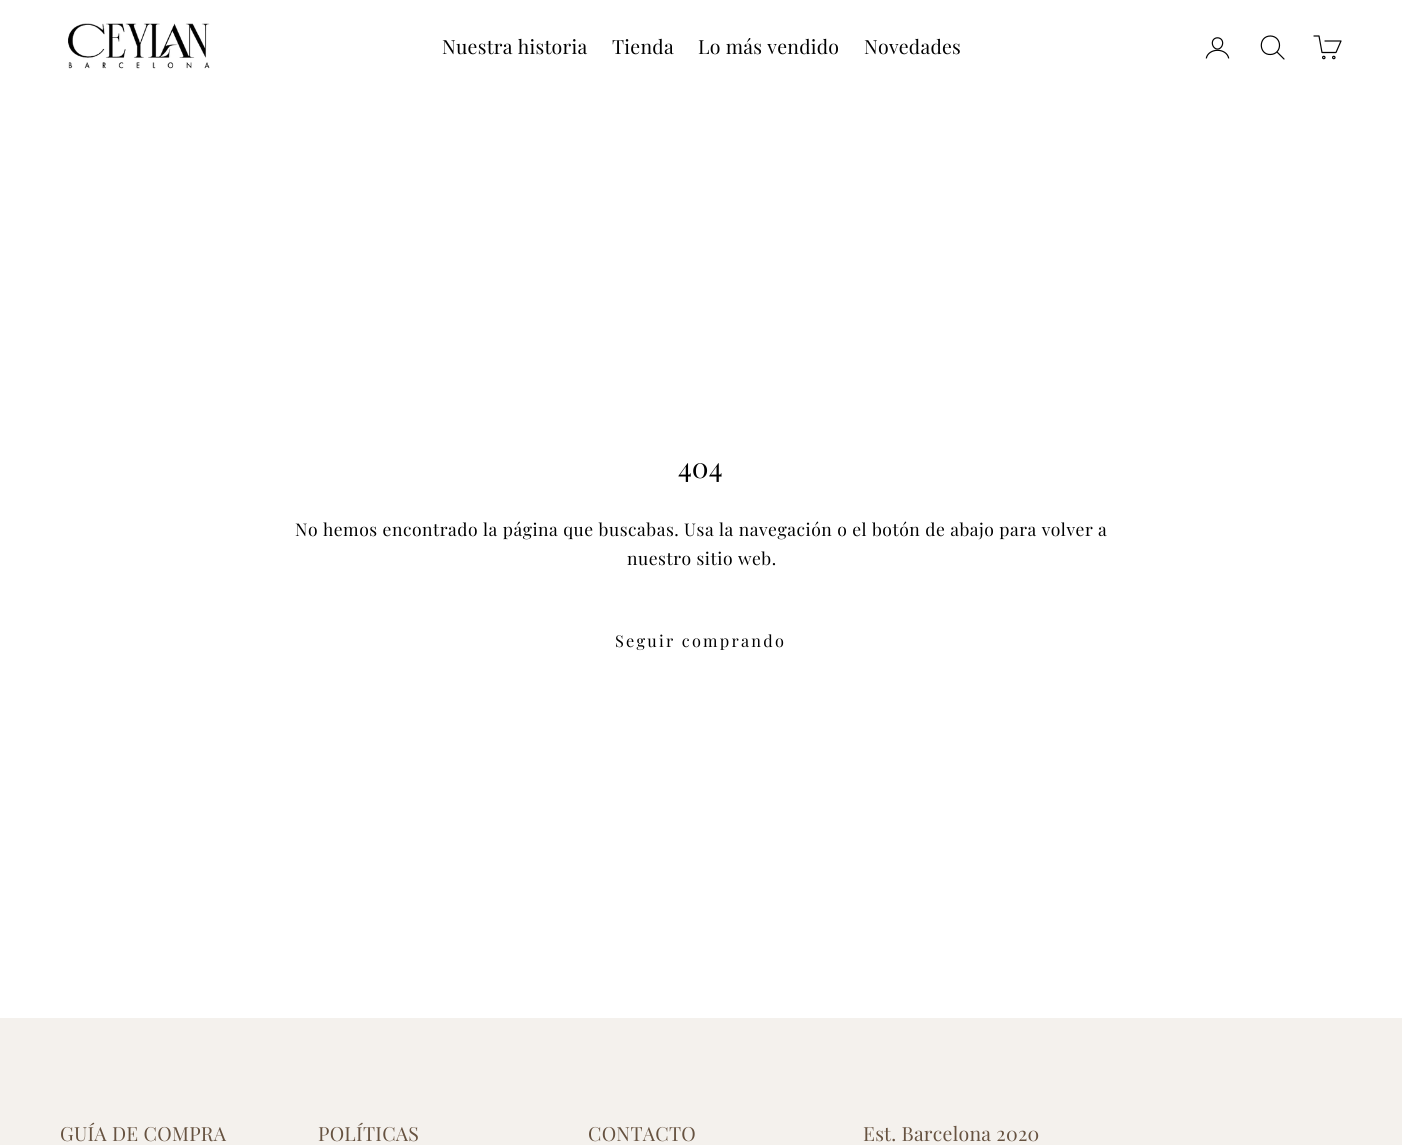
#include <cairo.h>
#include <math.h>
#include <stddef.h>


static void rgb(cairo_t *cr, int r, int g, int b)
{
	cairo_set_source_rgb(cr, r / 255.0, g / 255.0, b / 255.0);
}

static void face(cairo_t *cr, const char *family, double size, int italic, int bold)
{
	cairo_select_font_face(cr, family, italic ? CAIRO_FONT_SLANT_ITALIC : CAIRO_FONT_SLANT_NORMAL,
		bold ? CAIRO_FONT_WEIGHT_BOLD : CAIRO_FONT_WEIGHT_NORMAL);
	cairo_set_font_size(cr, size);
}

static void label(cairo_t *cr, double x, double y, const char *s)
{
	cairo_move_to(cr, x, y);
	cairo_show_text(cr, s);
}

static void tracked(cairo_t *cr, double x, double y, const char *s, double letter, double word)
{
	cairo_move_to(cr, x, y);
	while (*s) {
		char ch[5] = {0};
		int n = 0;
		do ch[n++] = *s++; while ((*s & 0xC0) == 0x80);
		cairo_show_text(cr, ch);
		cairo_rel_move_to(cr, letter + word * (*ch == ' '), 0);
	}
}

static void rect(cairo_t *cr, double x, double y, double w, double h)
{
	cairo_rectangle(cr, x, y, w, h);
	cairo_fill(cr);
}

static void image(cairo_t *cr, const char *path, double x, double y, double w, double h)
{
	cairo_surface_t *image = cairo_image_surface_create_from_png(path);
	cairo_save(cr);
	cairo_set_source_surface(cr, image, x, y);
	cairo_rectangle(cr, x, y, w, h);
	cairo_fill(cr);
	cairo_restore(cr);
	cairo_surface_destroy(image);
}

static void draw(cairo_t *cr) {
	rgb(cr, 255, 255, 255);
	cairo_paint(cr);
	image(cr, "image0.png", 68, 23, 142, 46);
	face(cr, "Playfair Display", 19.5, 0, 0);
	rgb(cr, 0, 0, 0);
	tracked(cr, 442, 54, "Nuestra historia", 0.25, 0);
	tracked(cr, 612, 54, "Tienda", 0.25, 0);
	tracked(cr, 698, 54, "Lo más vendido", 0.25, 0);
	tracked(cr, 864, 54, "Novedades", 0.25, 0);
	image(cr, "image1.png", 1205, 37, 25, 22);
	cairo_new_path(cr);
	cairo_move_to(cr, 1270.5, 36);
	cairo_curve_to(cr, 1258, 36, 1258.5, 55, 1270.5, 54.5);
	cairo_curve_to(cr, 1282.5, 54, 1282.5, 36.5, 1270.5, 36);
	cairo_close_path(cr);
	cairo_set_line_width(cr, 1.2);
	cairo_stroke(cr);
	cairo_new_path(cr);
	cairo_move_to(cr, 1277.5, 52.5);
	cairo_line_to(cr, 1284, 59);
	cairo_set_line_cap(cr, CAIRO_LINE_CAP_ROUND);
	cairo_stroke(cr);
	cairo_new_path(cr);
	cairo_move_to(cr, 1325, 41);
	cairo_line_to(cr, 1341, 41);
	cairo_line_to(cr, 1336, 52.5);
	cairo_line_to(cr, 1322, 52.5);
	cairo_line_to(cr, 1319, 36);
	cairo_line_to(cr, 1314, 36);
	cairo_set_line_join(cr, CAIRO_LINE_JOIN_ROUND);
	cairo_stroke(cr);
	cairo_arc(cr, 1323.8, 57.5, 1.2, 0, 2 * M_PI);
	cairo_set_line_cap(cr, CAIRO_LINE_CAP_BUTT);
	cairo_set_line_join(cr, CAIRO_LINE_JOIN_MITER);
	cairo_stroke(cr);
	cairo_arc(cr, 1333.8, 57.5, 1.2, 0, 2 * M_PI);
	cairo_stroke(cr);
	face(cr, "Playfair Display", 28, 0, 0);
	label(cr, 678, 478, "404");
	face(cr, "Playfair Display", 17.5, 0, 0);
	tracked(cr, 295, 536, "No hemos encontrado la página que buscabas. Usa la navegación o el botón de abajo para volver a", 0.53, 0);
	tracked(cr, 627, 565, "nuestro sitio web.", 0.53, 0);
	face(cr, "Playfair Display", 16.25, 0, 0);
	tracked(cr, 615, 647, "Seguir comprando", 2.25, 0);
	rgb(cr, 244, 241, 237);
	rect(cr, 0, 1018, 1402, 127);
	face(cr, "Playfair Display", 19.5, 0, 0);
	rgb(cr, 102, 82, 64);
	tracked(cr, 60, 1141, "GUÍA DE COMPRA", 0.25, 0);
	tracked(cr, 318, 1141, "POLÍTICAS", 0.25, 0);
	tracked(cr, 588, 1141, "CONTACTO", 0.25, 0);
	tracked(cr, 863, 1141, "Est. Barcelona 2020", 0.25, 0);
}

int main(void) {
	cairo_surface_t *surface = cairo_image_surface_create(CAIRO_FORMAT_RGB24, 1402, 1145);
	cairo_t *cr = cairo_create(surface);
	cairo_font_options_t *options = cairo_font_options_create();
	cairo_font_options_set_hint_metrics(options, CAIRO_HINT_METRICS_OFF);
	cairo_font_options_set_hint_style(options, CAIRO_HINT_STYLE_NONE);
	cairo_set_font_options(cr, options);
	cairo_set_miter_limit(cr, 4);
	draw(cr);
	cairo_surface_write_to_png(surface, "render.png");
	cairo_font_options_destroy(options);
	cairo_destroy(cr);
	cairo_surface_destroy(surface);
	return 0;
}
